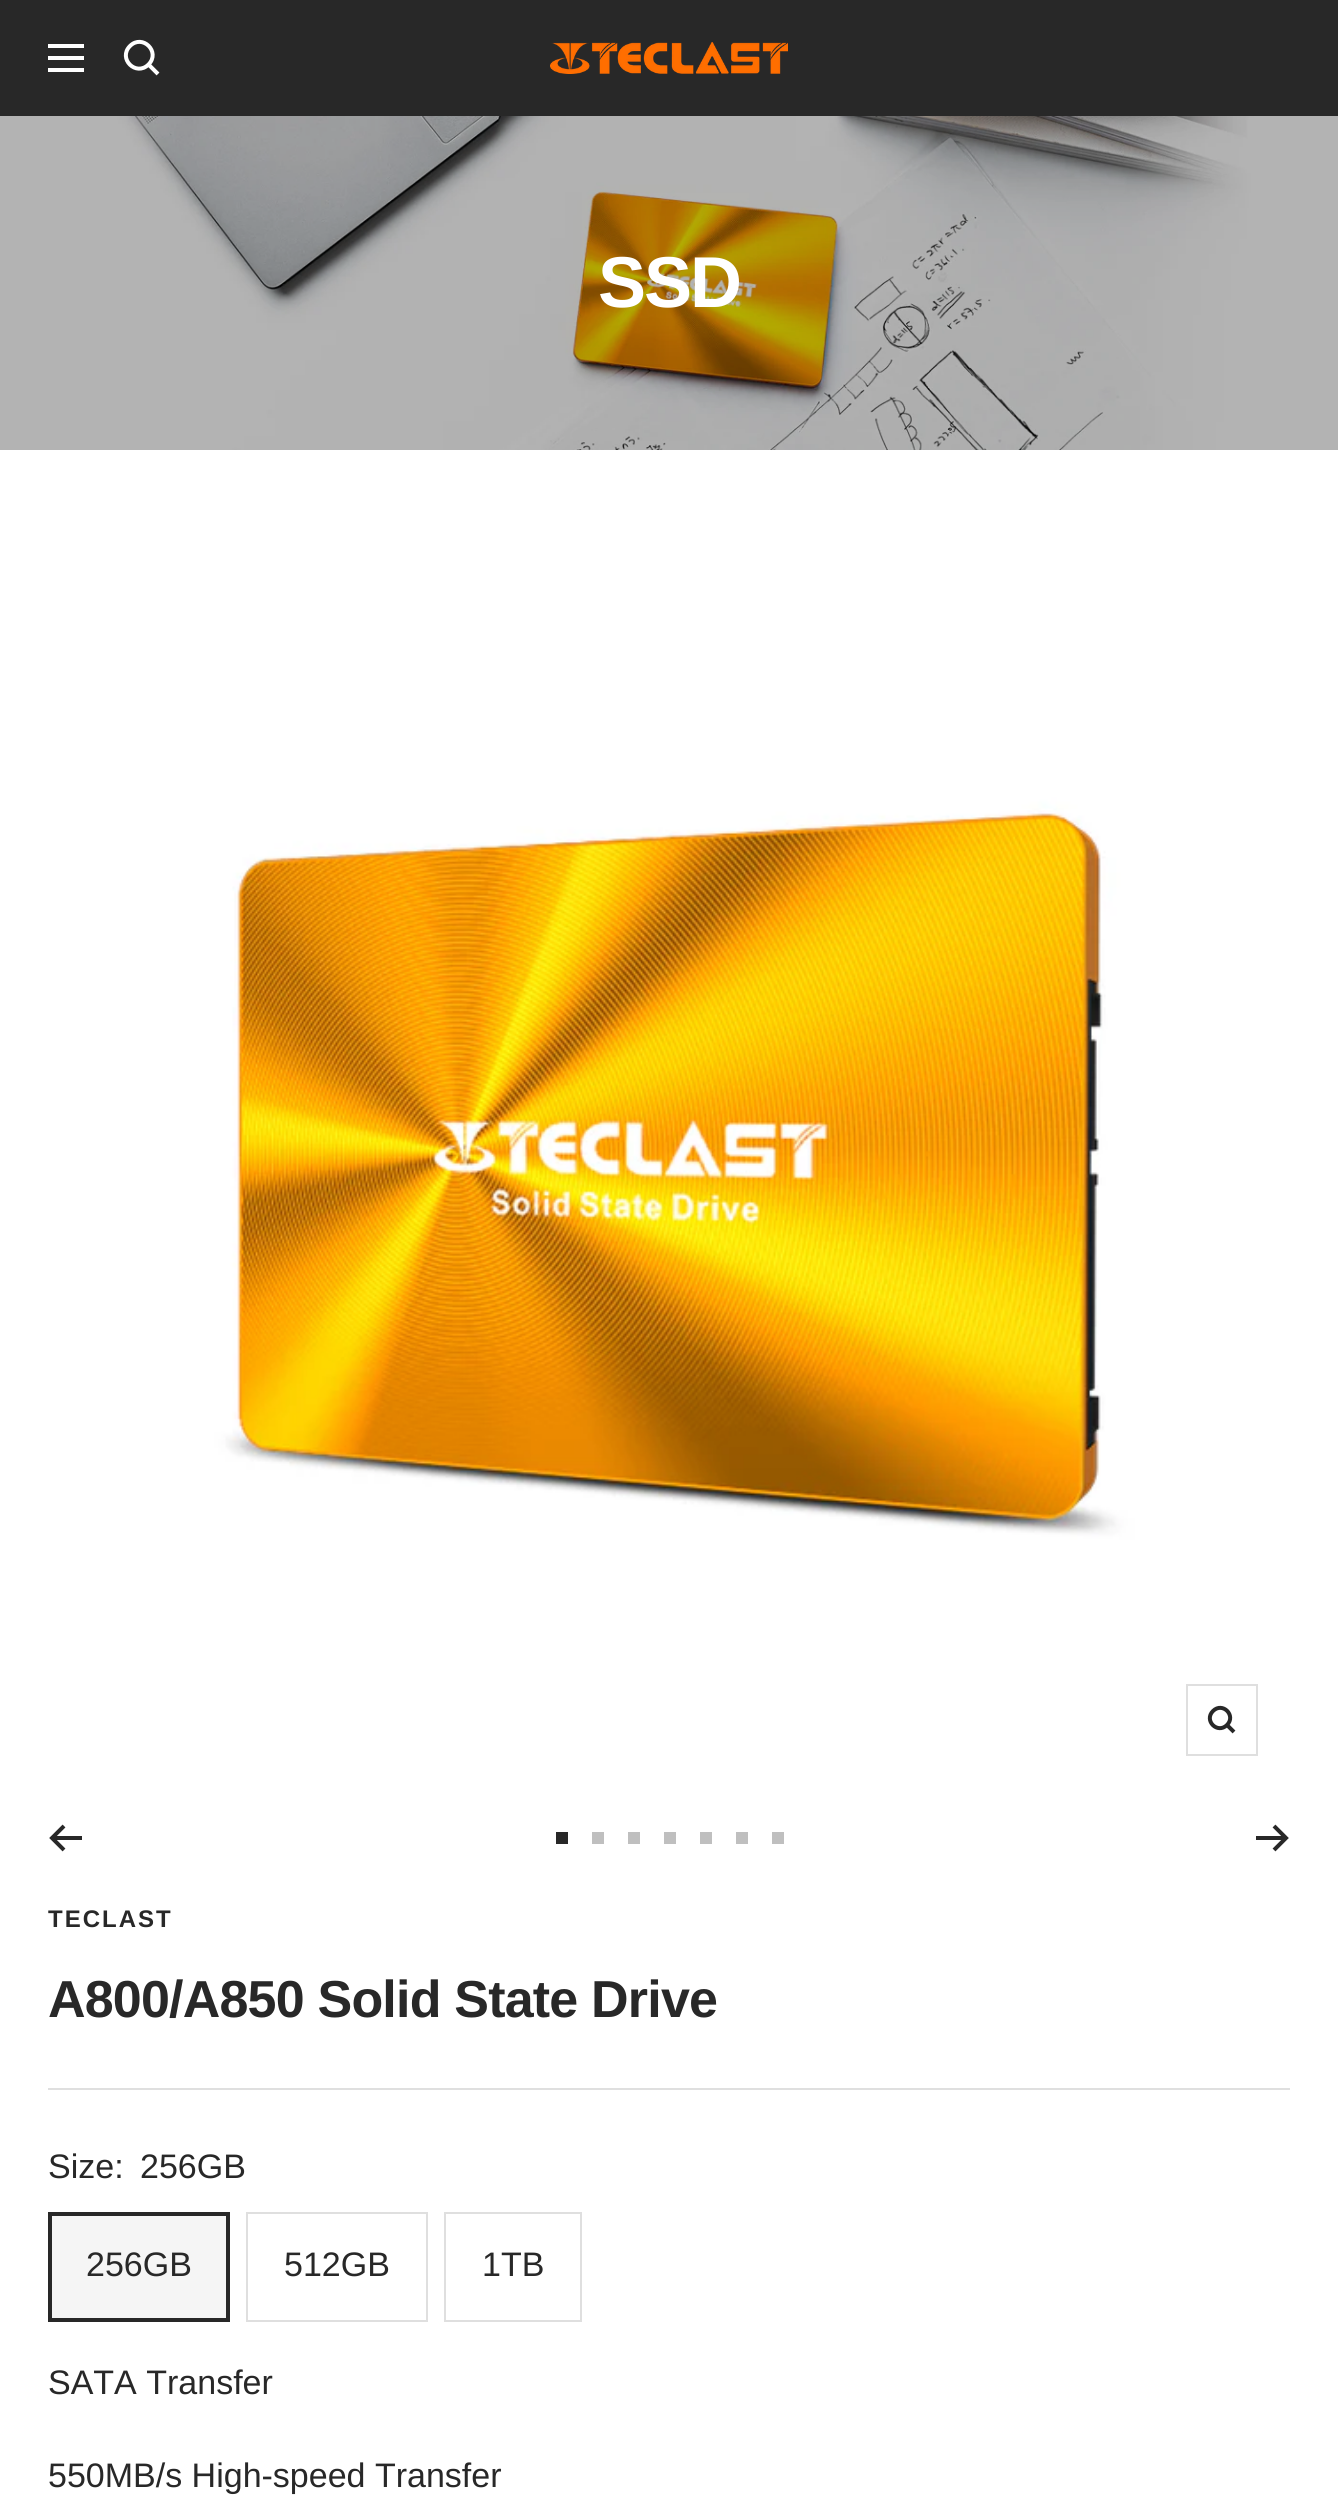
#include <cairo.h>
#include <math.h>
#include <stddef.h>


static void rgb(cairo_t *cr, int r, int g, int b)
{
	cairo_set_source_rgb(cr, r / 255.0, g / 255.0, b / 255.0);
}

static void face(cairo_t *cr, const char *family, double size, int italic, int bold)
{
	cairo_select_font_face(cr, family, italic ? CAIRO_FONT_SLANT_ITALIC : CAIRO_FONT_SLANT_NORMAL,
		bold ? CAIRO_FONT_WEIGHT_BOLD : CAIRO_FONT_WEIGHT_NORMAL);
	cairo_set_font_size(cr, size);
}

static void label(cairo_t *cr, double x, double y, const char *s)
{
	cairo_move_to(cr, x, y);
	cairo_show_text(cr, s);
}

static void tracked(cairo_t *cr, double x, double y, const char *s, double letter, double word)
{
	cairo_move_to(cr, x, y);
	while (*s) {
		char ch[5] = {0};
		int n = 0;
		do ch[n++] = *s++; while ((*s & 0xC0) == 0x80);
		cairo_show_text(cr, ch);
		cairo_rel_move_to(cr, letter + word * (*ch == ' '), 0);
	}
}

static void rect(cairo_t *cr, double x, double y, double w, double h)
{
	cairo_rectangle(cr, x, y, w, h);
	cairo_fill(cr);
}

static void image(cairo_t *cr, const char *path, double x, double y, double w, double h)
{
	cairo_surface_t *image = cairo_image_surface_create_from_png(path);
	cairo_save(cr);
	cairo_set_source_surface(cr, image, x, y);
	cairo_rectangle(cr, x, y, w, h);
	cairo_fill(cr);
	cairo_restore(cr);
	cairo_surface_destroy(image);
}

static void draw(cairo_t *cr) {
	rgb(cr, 255, 255, 255);
	cairo_paint(cr);
	rgb(cr, 40, 40, 40);
	rect(cr, 0, 0, 1338, 116);
	cairo_new_path(cr);
	cairo_move_to(cr, 48, 46);
	cairo_line_to(cr, 84, 46);
	cairo_move_to(cr, 48, 70);
	cairo_line_to(cr, 84, 70);
	cairo_close_path(cr);
	cairo_move_to(cr, 48, 58);
	cairo_line_to(cr, 84, 58);
	cairo_close_path(cr);
	rgb(cr, 255, 255, 255);
	cairo_set_line_width(cr, 4);
	cairo_stroke(cr);
	cairo_new_path(cr);
	cairo_move_to(cr, 148.5, 64.5);
	cairo_curve_to(cr, 161, 52, 142.5, 33.5, 130, 46);
	cairo_curve_to(cr, 117.5, 58.5, 136, 77, 148.5, 64.5);
	cairo_close_path(cr);
	cairo_move_to(cr, 148.5, 64.5);
	cairo_line_to(cr, 158, 74);
	cairo_stroke(cr);
	image(cr, "image0.png", 550, 42, 238, 32);
	image(cr, "image1.png", 0, 116, 1338, 334);
	face(cr, "Liberation Sans", 72, 0, 1);
	tracked(cr, 598, 307, "SSD", -2, 0);
	image(cr, "image2.png", 48, 546, 1242, 1242);
	cairo_rectangle(cr, 1187, 1685, 70, 70);
	rgb(cr, 223, 223, 223);
	cairo_set_line_width(cr, 2);
	cairo_stroke(cr);
	cairo_new_path(cr);
	cairo_move_to(cr, 1227, 1725);
	cairo_curve_to(cr, 1236.5, 1715.5, 1222.5, 1701.5, 1213, 1711);
	cairo_curve_to(cr, 1203.5, 1720.5, 1217.5, 1734.5, 1227, 1725);
	cairo_close_path(cr);
	cairo_move_to(cr, 1227, 1725);
	cairo_line_to(cr, 1234, 1732);
	rgb(cr, 40, 40, 40);
	cairo_set_line_width(cr, 4);
	cairo_stroke(cr);
	cairo_new_path(cr);
	cairo_move_to(cr, 82, 1838);
	cairo_line_to(cr, 52, 1838);
	cairo_move_to(cr, 64, 1826);
	cairo_line_to(cr, 52, 1838);
	cairo_line_to(cr, 64, 1850);
	cairo_stroke(cr);
	rect(cr, 556, 1832, 12, 12);
	rgb(cr, 191, 191, 191);
	rect(cr, 592, 1832, 12, 12);
	rect(cr, 628, 1832, 12, 12);
	rect(cr, 664, 1832, 12, 12);
	rect(cr, 700, 1832, 12, 12);
	rect(cr, 736, 1832, 12, 12);
	rect(cr, 772, 1832, 12, 12);
	cairo_new_path(cr);
	cairo_move_to(cr, 1256, 1838);
	cairo_line_to(cr, 1286, 1838);
	cairo_move_to(cr, 1274, 1826);
	cairo_line_to(cr, 1286, 1838);
	cairo_line_to(cr, 1274, 1850);
	rgb(cr, 40, 40, 40);
	cairo_stroke(cr);
	rgb(cr, 223, 223, 223);
	rect(cr, 48, 2088, 1242, 2);
	face(cr, "Liberation Sans", 24, 0, 1);
	rgb(cr, 40, 40, 40);
	tracked(cr, 48, 1927, "TECLAST", 2, 0);
	face(cr, "Liberation Sans", 52, 0, 1);
	tracked(cr, 48, 2017, "A800/A850 Solid State Drive", -0.8, 0);
	face(cr, "Liberation Sans", 34, 0, 0);
	label(cr, 48, 2178, "Size:");
	label(cr, 140, 2178, "256GB");
	rgb(cr, 245, 245, 245);
	rect(cr, 52, 2216, 174, 102);
	cairo_rectangle(cr, 49, 2213, 180, 108);
	rgb(cr, 40, 40, 40);
	cairo_set_line_width(cr, 2);
	cairo_stroke(cr);
	cairo_rectangle(cr, 51, 2215, 176, 104);
	cairo_stroke(cr);
	label(cr, 86, 2276, "256GB");
	cairo_rectangle(cr, 247, 2213, 180, 108);
	rgb(cr, 223, 223, 223);
	cairo_stroke(cr);
	rgb(cr, 40, 40, 40);
	label(cr, 284, 2276, "512GB");
	cairo_rectangle(cr, 445, 2213, 136, 108);
	rgb(cr, 223, 223, 223);
	cairo_stroke(cr);
	rgb(cr, 40, 40, 40);
	label(cr, 482, 2276, "1TB");
	label(cr, 48, 2394, "SATA Transfer");
	label(cr, 48, 2487, "550MB/s High-speed Transfer");
}

int main(void) {
	cairo_surface_t *surface = cairo_image_surface_create(CAIRO_FORMAT_RGB24, 1338, 2520);
	cairo_t *cr = cairo_create(surface);
	cairo_font_options_t *options = cairo_font_options_create();
	cairo_font_options_set_hint_metrics(options, CAIRO_HINT_METRICS_OFF);
	cairo_font_options_set_hint_style(options, CAIRO_HINT_STYLE_NONE);
	cairo_set_font_options(cr, options);
	cairo_set_miter_limit(cr, 4);
	draw(cr);
	cairo_surface_write_to_png(surface, "render.png");
	cairo_font_options_destroy(options);
	cairo_destroy(cr);
	cairo_surface_destroy(surface);
	return 0;
}
